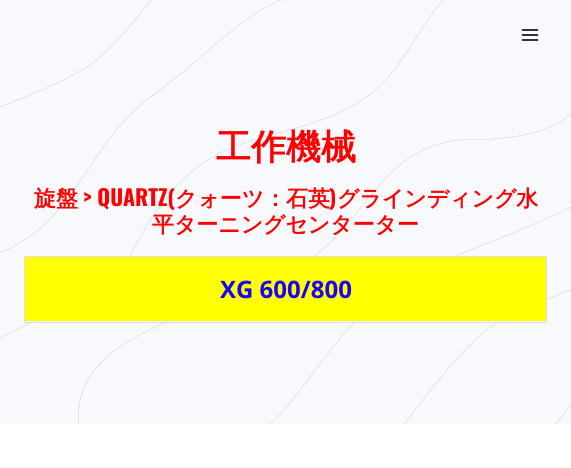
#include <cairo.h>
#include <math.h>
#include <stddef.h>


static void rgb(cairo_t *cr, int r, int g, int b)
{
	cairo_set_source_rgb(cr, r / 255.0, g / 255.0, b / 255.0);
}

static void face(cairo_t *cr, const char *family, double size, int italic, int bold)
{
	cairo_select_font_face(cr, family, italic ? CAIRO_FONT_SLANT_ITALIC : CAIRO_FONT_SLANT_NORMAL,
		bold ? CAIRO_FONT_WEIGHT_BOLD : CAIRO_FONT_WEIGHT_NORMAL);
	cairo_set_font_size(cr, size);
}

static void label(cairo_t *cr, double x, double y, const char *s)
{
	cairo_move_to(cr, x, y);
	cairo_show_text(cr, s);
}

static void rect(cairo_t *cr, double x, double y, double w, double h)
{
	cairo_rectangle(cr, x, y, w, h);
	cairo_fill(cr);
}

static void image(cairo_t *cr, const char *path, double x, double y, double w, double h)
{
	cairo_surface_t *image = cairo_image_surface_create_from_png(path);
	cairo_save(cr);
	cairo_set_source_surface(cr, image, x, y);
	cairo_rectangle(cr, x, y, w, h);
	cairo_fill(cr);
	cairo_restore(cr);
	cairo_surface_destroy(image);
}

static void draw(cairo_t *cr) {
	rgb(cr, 247, 249, 252);
	cairo_paint(cr);
	image(cr, "image1.png", 0, 0, 571, 424);
	image(cr, "image0.png", 521, 29, 18, 12);
	face(cr, "WenQuanYi Zen Hei", 35, 0, 1);
	rgb(cr, 255, 0, 0);
	label(cr, 216, 159, "工作機械");
	face(cr, "WenQuanYi Zen Hei", 21.9, 0, 1);
	label(cr, 34, 206, "旋盤");
	face(cr, "Oswald", 21.9, 0, 1);
	label(cr, 83, 206, "> QUARTZ(");
	face(cr, "WenQuanYi Zen Hei", 21.9, 0, 1);
	label(cr, 175, 206, "クォーツ：石英");
	face(cr, "Oswald", 21.9, 0, 1);
	label(cr, 329, 206, ")");
	face(cr, "WenQuanYi Zen Hei", 21.9, 0, 1);
	label(cr, 337, 206, "グラインディング水");
	label(cr, 152, 232, "平ターニングセンターター");
	rgb(cr, 221, 221, 221);
	rect(cr, 24, 256, 523, 1);
	rect(cr, 24, 256, 1, 67);
	rgb(cr, 255, 255, 0);
	rect(cr, 25, 257, 521, 64);
	rgb(cr, 221, 221, 221);
	rect(cr, 546, 256, 1, 67);
	rect(cr, 24, 322, 523, 1);
	face(cr, "Open Sans", 24, 0, 1);
	rgb(cr, 25, 0, 255);
	label(cr, 220, 298, "XG 600/800");
	rgb(cr, 255, 255, 255);
	rect(cr, 0, 424, 571, 44);
}

int main(void) {
	cairo_surface_t *surface = cairo_image_surface_create(CAIRO_FORMAT_RGB24, 571, 468);
	cairo_t *cr = cairo_create(surface);
	cairo_font_options_t *options = cairo_font_options_create();
	cairo_font_options_set_hint_metrics(options, CAIRO_HINT_METRICS_OFF);
	cairo_font_options_set_hint_style(options, CAIRO_HINT_STYLE_NONE);
	cairo_set_font_options(cr, options);
	cairo_set_miter_limit(cr, 4);
	draw(cr);
	cairo_surface_write_to_png(surface, "render.png");
	cairo_font_options_destroy(options);
	cairo_destroy(cr);
	cairo_surface_destroy(surface);
	return 0;
}
